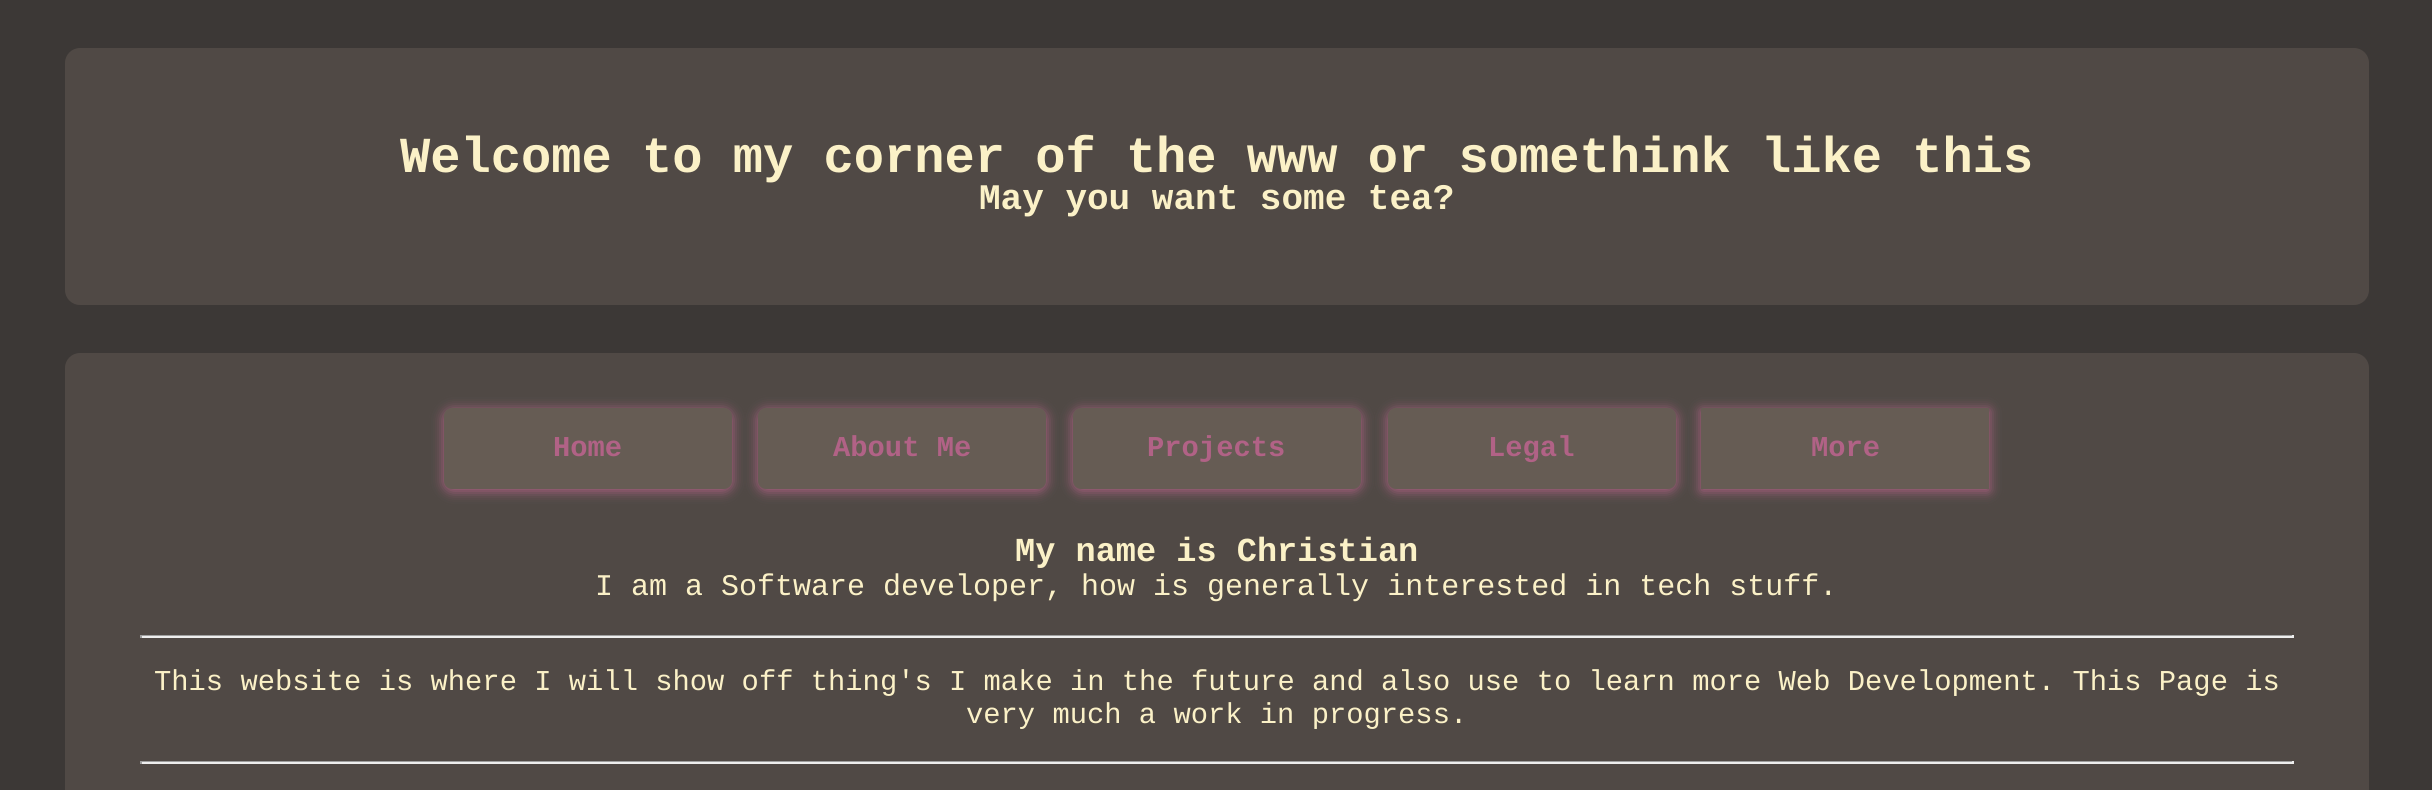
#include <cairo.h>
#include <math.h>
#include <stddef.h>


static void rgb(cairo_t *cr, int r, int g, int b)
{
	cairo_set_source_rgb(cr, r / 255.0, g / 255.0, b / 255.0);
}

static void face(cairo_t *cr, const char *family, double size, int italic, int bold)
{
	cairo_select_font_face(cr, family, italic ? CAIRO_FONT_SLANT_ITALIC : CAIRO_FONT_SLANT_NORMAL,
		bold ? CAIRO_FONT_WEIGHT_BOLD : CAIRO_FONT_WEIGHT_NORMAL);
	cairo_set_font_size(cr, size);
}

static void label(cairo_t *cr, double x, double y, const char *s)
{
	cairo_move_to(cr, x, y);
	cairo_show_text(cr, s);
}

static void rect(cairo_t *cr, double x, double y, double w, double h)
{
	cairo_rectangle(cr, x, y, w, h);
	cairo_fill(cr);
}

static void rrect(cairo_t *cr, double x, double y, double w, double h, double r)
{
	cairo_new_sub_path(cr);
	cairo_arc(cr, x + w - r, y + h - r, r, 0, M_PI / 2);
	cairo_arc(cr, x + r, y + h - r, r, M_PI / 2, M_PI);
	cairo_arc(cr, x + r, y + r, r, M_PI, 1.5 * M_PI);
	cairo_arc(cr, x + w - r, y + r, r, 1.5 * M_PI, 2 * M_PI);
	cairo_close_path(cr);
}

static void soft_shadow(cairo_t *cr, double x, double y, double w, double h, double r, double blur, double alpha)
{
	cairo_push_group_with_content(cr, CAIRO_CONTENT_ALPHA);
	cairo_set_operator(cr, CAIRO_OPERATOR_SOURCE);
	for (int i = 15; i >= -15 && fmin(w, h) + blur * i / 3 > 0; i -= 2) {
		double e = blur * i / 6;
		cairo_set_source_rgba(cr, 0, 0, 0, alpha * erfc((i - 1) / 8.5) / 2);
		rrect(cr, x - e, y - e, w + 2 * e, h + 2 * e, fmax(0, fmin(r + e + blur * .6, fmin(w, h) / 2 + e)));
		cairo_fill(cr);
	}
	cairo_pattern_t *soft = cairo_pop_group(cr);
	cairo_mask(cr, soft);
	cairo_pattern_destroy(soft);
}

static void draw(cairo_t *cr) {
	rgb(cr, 60, 56, 54);
	cairo_paint(cr);
	rgb(cr, 80, 73, 69);
	rrect(cr, 65, 48, 2304, 257, 15);
	cairo_fill(cr);
	face(cr, "Liberation Mono", 50.4, 0, 1);
	rgb(cr, 251, 241, 199);
	label(cr, 400, 172, "Welcome to my corner of the www or somethink like this");
	face(cr, "Liberation Mono", 36, 0, 1);
	label(cr, 979, 209, "May you want some tea?");
	rgb(cr, 80, 73, 69);
	rrect(cr, 65, 353, 2304, 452, 15);
	cairo_fill(cr);
	rgb(cr, 177, 98, 134);
	soft_shadow(cr, 444, 410, 288, 81, 8, 6, 1);
	rgb(cr, 102, 92, 84);
	rrect(cr, 444, 408, 288, 81, 8);
	cairo_fill(cr);
	face(cr, "Liberation Mono", 28.8, 0, 1);
	rgb(cr, 177, 98, 134);
	label(cr, 553, 456, "Home");
	rgb(cr, 177, 98, 134);
	soft_shadow(cr, 758, 410, 288, 81, 8, 6, 1);
	rgb(cr, 102, 92, 84);
	rrect(cr, 758, 408, 288, 81, 8);
	cairo_fill(cr);
	rgb(cr, 177, 98, 134);
	label(cr, 833, 456, "About Me");
	rgb(cr, 177, 98, 134);
	soft_shadow(cr, 1073, 410, 288, 81, 8, 6, 1);
	rgb(cr, 102, 92, 84);
	rrect(cr, 1073, 408, 288, 81, 8);
	cairo_fill(cr);
	rgb(cr, 177, 98, 134);
	label(cr, 1147, 456, "Projects");
	rgb(cr, 177, 98, 134);
	soft_shadow(cr, 1388, 410, 288, 81, 8, 6, 1);
	rgb(cr, 102, 92, 84);
	rrect(cr, 1388, 408, 288, 81, 8);
	cairo_fill(cr);
	rgb(cr, 177, 98, 134);
	label(cr, 1488, 456, "Legal");
	rgb(cr, 177, 98, 134);
	soft_shadow(cr, 1701, 410, 288, 81, 0, 6, 1);
	rgb(cr, 102, 92, 84);
	rect(cr, 1701, 408, 288, 81);
	rgb(cr, 177, 98, 134);
	label(cr, 1811, 456, "More");
	face(cr, "Liberation Mono", 33.6, 0, 1);
	rgb(cr, 251, 241, 199);
	label(cr, 1015, 561, "My name is Christian");
	face(cr, "Liberation Mono", 30, 0, 0);
	label(cr, 595, 595, "I am a Software developer, how is generally interested in tech stuff.");
	rgb(cr, 159, 159, 159);
	rect(cr, 140, 635, 2154, 1);
	rgb(cr, 238, 238, 238);
	rect(cr, 2292, 635, 2, 3);
	rect(cr, 140, 636, 2154, 2);
	rgb(cr, 159, 159, 159);
	rect(cr, 140, 635, 2, 3);
	face(cr, "Liberation Mono", 28.8, 0, 0);
	rgb(cr, 251, 241, 199);
	label(cr, 154, 690, "This website is where I will show off thing's I make in the future and also use to learn more Web Development. This Page is");
	label(cr, 966, 723, "very much a work in progress.");
	rgb(cr, 159, 159, 159);
	rect(cr, 140, 761, 2154, 1);
	rgb(cr, 238, 238, 238);
	rect(cr, 2292, 761, 2, 3);
	rect(cr, 140, 762, 2154, 2);
	rgb(cr, 159, 159, 159);
	rect(cr, 140, 761, 2, 3);
}

int main(void) {
	cairo_surface_t *surface = cairo_image_surface_create(CAIRO_FORMAT_RGB24, 2432, 790);
	cairo_t *cr = cairo_create(surface);
	cairo_font_options_t *options = cairo_font_options_create();
	cairo_font_options_set_hint_metrics(options, CAIRO_HINT_METRICS_OFF);
	cairo_font_options_set_hint_style(options, CAIRO_HINT_STYLE_NONE);
	cairo_set_font_options(cr, options);
	cairo_set_miter_limit(cr, 4);
	draw(cr);
	cairo_surface_write_to_png(surface, "render.png");
	cairo_font_options_destroy(options);
	cairo_destroy(cr);
	cairo_surface_destroy(surface);
	return 0;
}
